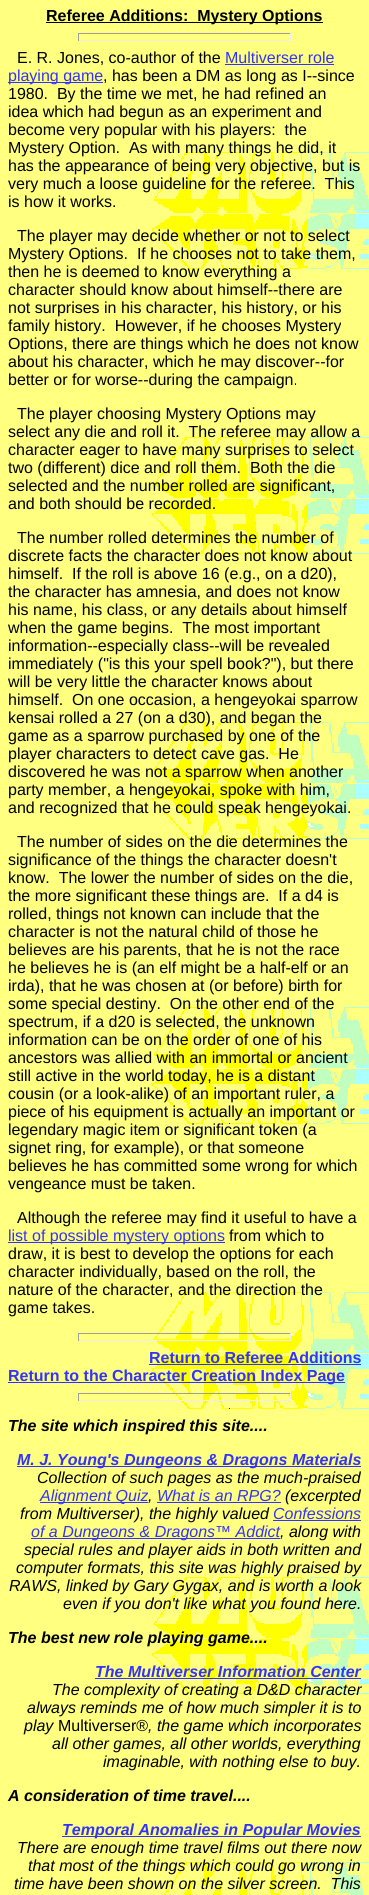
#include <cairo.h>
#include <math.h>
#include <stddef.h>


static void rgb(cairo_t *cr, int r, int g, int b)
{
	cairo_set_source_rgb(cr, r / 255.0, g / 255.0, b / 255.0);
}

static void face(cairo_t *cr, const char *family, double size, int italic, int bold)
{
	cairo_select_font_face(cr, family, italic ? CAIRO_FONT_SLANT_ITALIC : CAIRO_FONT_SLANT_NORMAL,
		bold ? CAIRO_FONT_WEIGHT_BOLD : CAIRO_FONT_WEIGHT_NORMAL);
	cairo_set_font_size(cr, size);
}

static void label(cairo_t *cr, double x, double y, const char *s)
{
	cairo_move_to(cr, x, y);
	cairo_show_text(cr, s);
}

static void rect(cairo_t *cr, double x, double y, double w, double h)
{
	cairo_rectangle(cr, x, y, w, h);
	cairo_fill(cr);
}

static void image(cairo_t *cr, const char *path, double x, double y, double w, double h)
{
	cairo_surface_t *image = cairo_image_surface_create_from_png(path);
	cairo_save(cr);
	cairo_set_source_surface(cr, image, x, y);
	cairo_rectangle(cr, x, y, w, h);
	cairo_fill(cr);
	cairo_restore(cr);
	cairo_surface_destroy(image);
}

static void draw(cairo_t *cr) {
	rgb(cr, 255, 255, 255);
	cairo_paint(cr);
	image(cr, "image0.png", 0, 0, 369, 1895);
	rgb(cr, 0, 0, 0);
	rect(cr, 46, 22, 277, 1);
	face(cr, "Liberation Sans", 16, 0, 1);
	label(cr, 46, 21, "Referee Additions:  Mystery Options");
	rgb(cr, 159, 159, 159);
	rect(cr, 78, 33, 213, 1);
	rgb(cr, 238, 238, 238);
	rect(cr, 290, 33, 1, 8);
	rect(cr, 78, 40, 213, 1);
	rgb(cr, 159, 159, 159);
	rect(cr, 78, 33, 1, 8);
	face(cr, "Liberation Sans", 16, 0, 0);
	rgb(cr, 0, 0, 0);
	label(cr, 17, 63, "E. R. Jones, co-author of the");
	rgb(cr, 51, 51, 255);
	label(cr, 225, 63, "Multiverser role");
	rect(cr, 225, 64, 109, 1);
	rect(cr, 8, 82, 95, 1);
	label(cr, 8, 81, "playing game");
	rgb(cr, 0, 0, 0);
	label(cr, 103, 81, ", has been a DM as long as I--since");
	label(cr, 8, 99, "1980.  By the time we met, he had refined an");
	label(cr, 8, 117, "idea which had begun as an experiment and");
	label(cr, 8, 135, "become very popular with his players:  the");
	label(cr, 8, 153, "Mystery Option.  As with many things he did, it");
	label(cr, 8, 171, "has the appearance of being very objective, but is");
	label(cr, 8, 189, "very much a loose guideline for the referee.  This");
	label(cr, 8, 207, "is how it works.");
	label(cr, 17, 241, "The player may decide whether or not to select");
	label(cr, 8, 259, "Mystery Options.  If he chooses not to take them,");
	label(cr, 8, 277, "then he is deemed to know everything a");
	label(cr, 8, 295, "character should know about himself--there are");
	label(cr, 8, 313, "not surprises in his character, his history, or his");
	label(cr, 8, 331, "family history.  However, if he chooses Mystery");
	label(cr, 8, 349, "Options, there are things which he does not know");
	label(cr, 8, 367, "about his character, which he may discover--for");
	label(cr, 8, 385, "better or for worse--during the campaign.");
	label(cr, 17, 419, "The player choosing Mystery Options may");
	label(cr, 8, 437, "select any die and roll it.  The referee may allow a");
	label(cr, 8, 455, "character eager to have many surprises to select");
	label(cr, 8, 473, "two (different) dice and roll them.  Both the die");
	label(cr, 8, 491, "selected and the number rolled are significant,");
	label(cr, 8, 509, "and both should be recorded.");
	label(cr, 17, 543, "The number rolled determines the number of");
	label(cr, 8, 561, "discrete facts the character does not know about");
	label(cr, 8, 579, "himself.  If the roll is above 16 (e.g., on a d20),");
	label(cr, 8, 597, "the character has amnesia, and does not know");
	label(cr, 8, 615, "his name, his class, or any details about himself");
	label(cr, 8, 633, "when the game begins.  The most important");
	label(cr, 8, 651, "information--especially class--will be revealed");
	label(cr, 8, 669, "immediately (\"is this your spell book?\"), but there");
	label(cr, 8, 687, "will be very little the character knows about");
	label(cr, 8, 705, "himself.  On one occasion, a hengeyokai sparrow");
	label(cr, 8, 723, "kensai rolled a 27 (on a d30), and began the");
	label(cr, 8, 741, "game as a sparrow purchased by one of the");
	label(cr, 8, 759, "player characters to detect cave gas.  He");
	label(cr, 8, 777, "discovered he was not a sparrow when another");
	label(cr, 8, 795, "party member, a hengeyokai, spoke with him,");
	label(cr, 8, 813, "and recognized that he could speak hengeyokai.");
	label(cr, 17, 847, "The number of sides on the die determines the");
	label(cr, 8, 865, "significance of the things the character doesn't");
	label(cr, 8, 883, "know.  The lower the number of sides on the die,");
	label(cr, 8, 901, "the more significant these things are.  If a d4 is");
	label(cr, 8, 919, "rolled, things not known can include that the");
	label(cr, 8, 937, "character is not the natural child of those he");
	label(cr, 8, 955, "believes are his parents, that he is not the race");
	label(cr, 8, 973, "he believes he is (an elf might be a half-elf or an");
	label(cr, 8, 991, "irda), that he was chosen at (or before) birth for");
	label(cr, 8, 1009, "some special destiny.  On the other end of the");
	label(cr, 8, 1027, "spectrum, if a d20 is selected, the unknown");
	label(cr, 8, 1045, "information can be on the order of one of his");
	label(cr, 8, 1063, "ancestors was allied with an immortal or ancient");
	label(cr, 8, 1081, "still active in the world today, he is a distant");
	label(cr, 8, 1099, "cousin (or a look-alike) of an important ruler, a");
	label(cr, 8, 1117, "piece of his equipment is actually an important or");
	label(cr, 8, 1135, "legendary magic item or significant token (a");
	label(cr, 8, 1153, "signet ring, for example), or that someone");
	label(cr, 8, 1171, "believes he has committed some wrong for which");
	label(cr, 8, 1189, "vengeance must be taken.");
	label(cr, 17, 1223, "Although the referee may find it useful to have a");
	rgb(cr, 51, 51, 255);
	rect(cr, 8, 1242, 217, 1);
	label(cr, 8, 1241, "list of possible mystery options");
	rgb(cr, 0, 0, 0);
	label(cr, 229, 1241, "from which to");
	label(cr, 8, 1259, "draw, it is best to develop the options for each");
	label(cr, 8, 1277, "character individually, based on the roll, the");
	label(cr, 8, 1295, "nature of the character, and the direction the");
	label(cr, 8, 1313, "game takes.");
	rgb(cr, 159, 159, 159);
	rect(cr, 78, 1333, 213, 1);
	rgb(cr, 238, 238, 238);
	rect(cr, 290, 1333, 1, 8);
	rect(cr, 78, 1340, 213, 1);
	rgb(cr, 159, 159, 159);
	rect(cr, 78, 1333, 1, 8);
	face(cr, "Liberation Sans", 16, 0, 1);
	rgb(cr, 51, 51, 255);
	label(cr, 149, 1363, "Return to Referee Additions");
	rect(cr, 149, 1364, 212, 1);
	rect(cr, 8, 1382, 337, 1);
	label(cr, 8, 1381, "Return to the Character Creation Index Page");
	rgb(cr, 159, 159, 159);
	rect(cr, 78, 1393, 213, 1);
	rgb(cr, 238, 238, 238);
	rect(cr, 290, 1393, 1, 8);
	rect(cr, 78, 1400, 213, 1);
	rgb(cr, 159, 159, 159);
	rect(cr, 78, 1393, 1, 8);
	face(cr, "Liberation Sans", 16, 1, 1);
	rgb(cr, 0, 0, 0);
	label(cr, 8, 1431, "The site which inspired this site....");
	rgb(cr, 51, 51, 255);
	rect(cr, 17, 1466, 344, 1);
	label(cr, 17, 1465, "M. J. Young's Dungeons & Dragons Materials");
	face(cr, "Liberation Sans", 16, 1, 0);
	rgb(cr, 0, 0, 0);
	label(cr, 37, 1483, "Collection of such pages as the much-praised");
	rgb(cr, 51, 51, 255);
	rect(cr, 40, 1502, 108, 1);
	label(cr, 40, 1501, "Alignment Quiz");
	rgb(cr, 0, 0, 0);
	label(cr, 148, 1501, ",");
	rgb(cr, 51, 51, 255);
	rect(cr, 157, 1502, 124, 1);
	label(cr, 157, 1501, "What is an RPG?");
	rgb(cr, 0, 0, 0);
	label(cr, 285, 1501, "(excerpted");
	label(cr, 20, 1519, "from Multiverser), the highly valued");
	rgb(cr, 51, 51, 255);
	label(cr, 273, 1519, "Confessions");
	rect(cr, 273, 1520, 88, 1);
	rect(cr, 31, 1538, 249, 1);
	label(cr, 31, 1537, "of a Dungeons & Dragons™ Addict");
	rgb(cr, 0, 0, 0);
	label(cr, 280, 1537, ", along with");
	label(cr, 24, 1555, "special rules and player aids in both written and");
	label(cr, 16, 1573, "computer formats, this site was highly praised by");
	label(cr, 9, 1591, "RAWS, linked by Gary Gygax, and is worth a look");
	label(cr, 63, 1609, "even if you don't like what you found here.");
	face(cr, "Liberation Sans", 16, 1, 1);
	label(cr, 8, 1643, "The best new role playing game....");
	rgb(cr, 51, 51, 255);
	label(cr, 95, 1677, "The Multiverser Information Center");
	rect(cr, 95, 1678, 266, 1);
	face(cr, "Liberation Sans", 16, 1, 0);
	rgb(cr, 0, 0, 0);
	label(cr, 52, 1695, "The complexity of creating a D&D character");
	label(cr, 27, 1713, "always reminds me of how much simpler it is to");
	label(cr, 24, 1731, "play");
	face(cr, "Liberation Sans", 16, 0, 0);
	label(cr, 58, 1731, "Multiverser®");
	face(cr, "Liberation Sans", 16, 1, 0);
	label(cr, 148, 1731, ", the game which incorporates");
	label(cr, 52, 1749, "all other games, all other worlds, everything");
	label(cr, 103, 1767, "imaginable, with nothing else to buy.");
	face(cr, "Liberation Sans", 16, 1, 1);
	label(cr, 8, 1801, "A consideration of time travel....");
	rgb(cr, 51, 51, 255);
	rect(cr, 62, 1836, 299, 1);
	label(cr, 62, 1835, "Temporal Anomalies in Popular Movies");
	face(cr, "Liberation Sans", 16, 1, 0);
	rgb(cr, 0, 0, 0);
	label(cr, 17, 1853, "There are enough time travel films out there now");
	label(cr, 28, 1871, "that most of the things which could go wrong in");
	label(cr, 14, 1889, "time have been shown on the silver screen.  This");
}

int main(void) {
	cairo_surface_t *surface = cairo_image_surface_create(CAIRO_FORMAT_RGB24, 369, 1895);
	cairo_t *cr = cairo_create(surface);
	cairo_font_options_t *options = cairo_font_options_create();
	cairo_font_options_set_hint_metrics(options, CAIRO_HINT_METRICS_OFF);
	cairo_font_options_set_hint_style(options, CAIRO_HINT_STYLE_NONE);
	cairo_set_font_options(cr, options);
	cairo_set_miter_limit(cr, 4);
	draw(cr);
	cairo_surface_write_to_png(surface, "render.png");
	cairo_font_options_destroy(options);
	cairo_destroy(cr);
	cairo_surface_destroy(surface);
	return 0;
}
